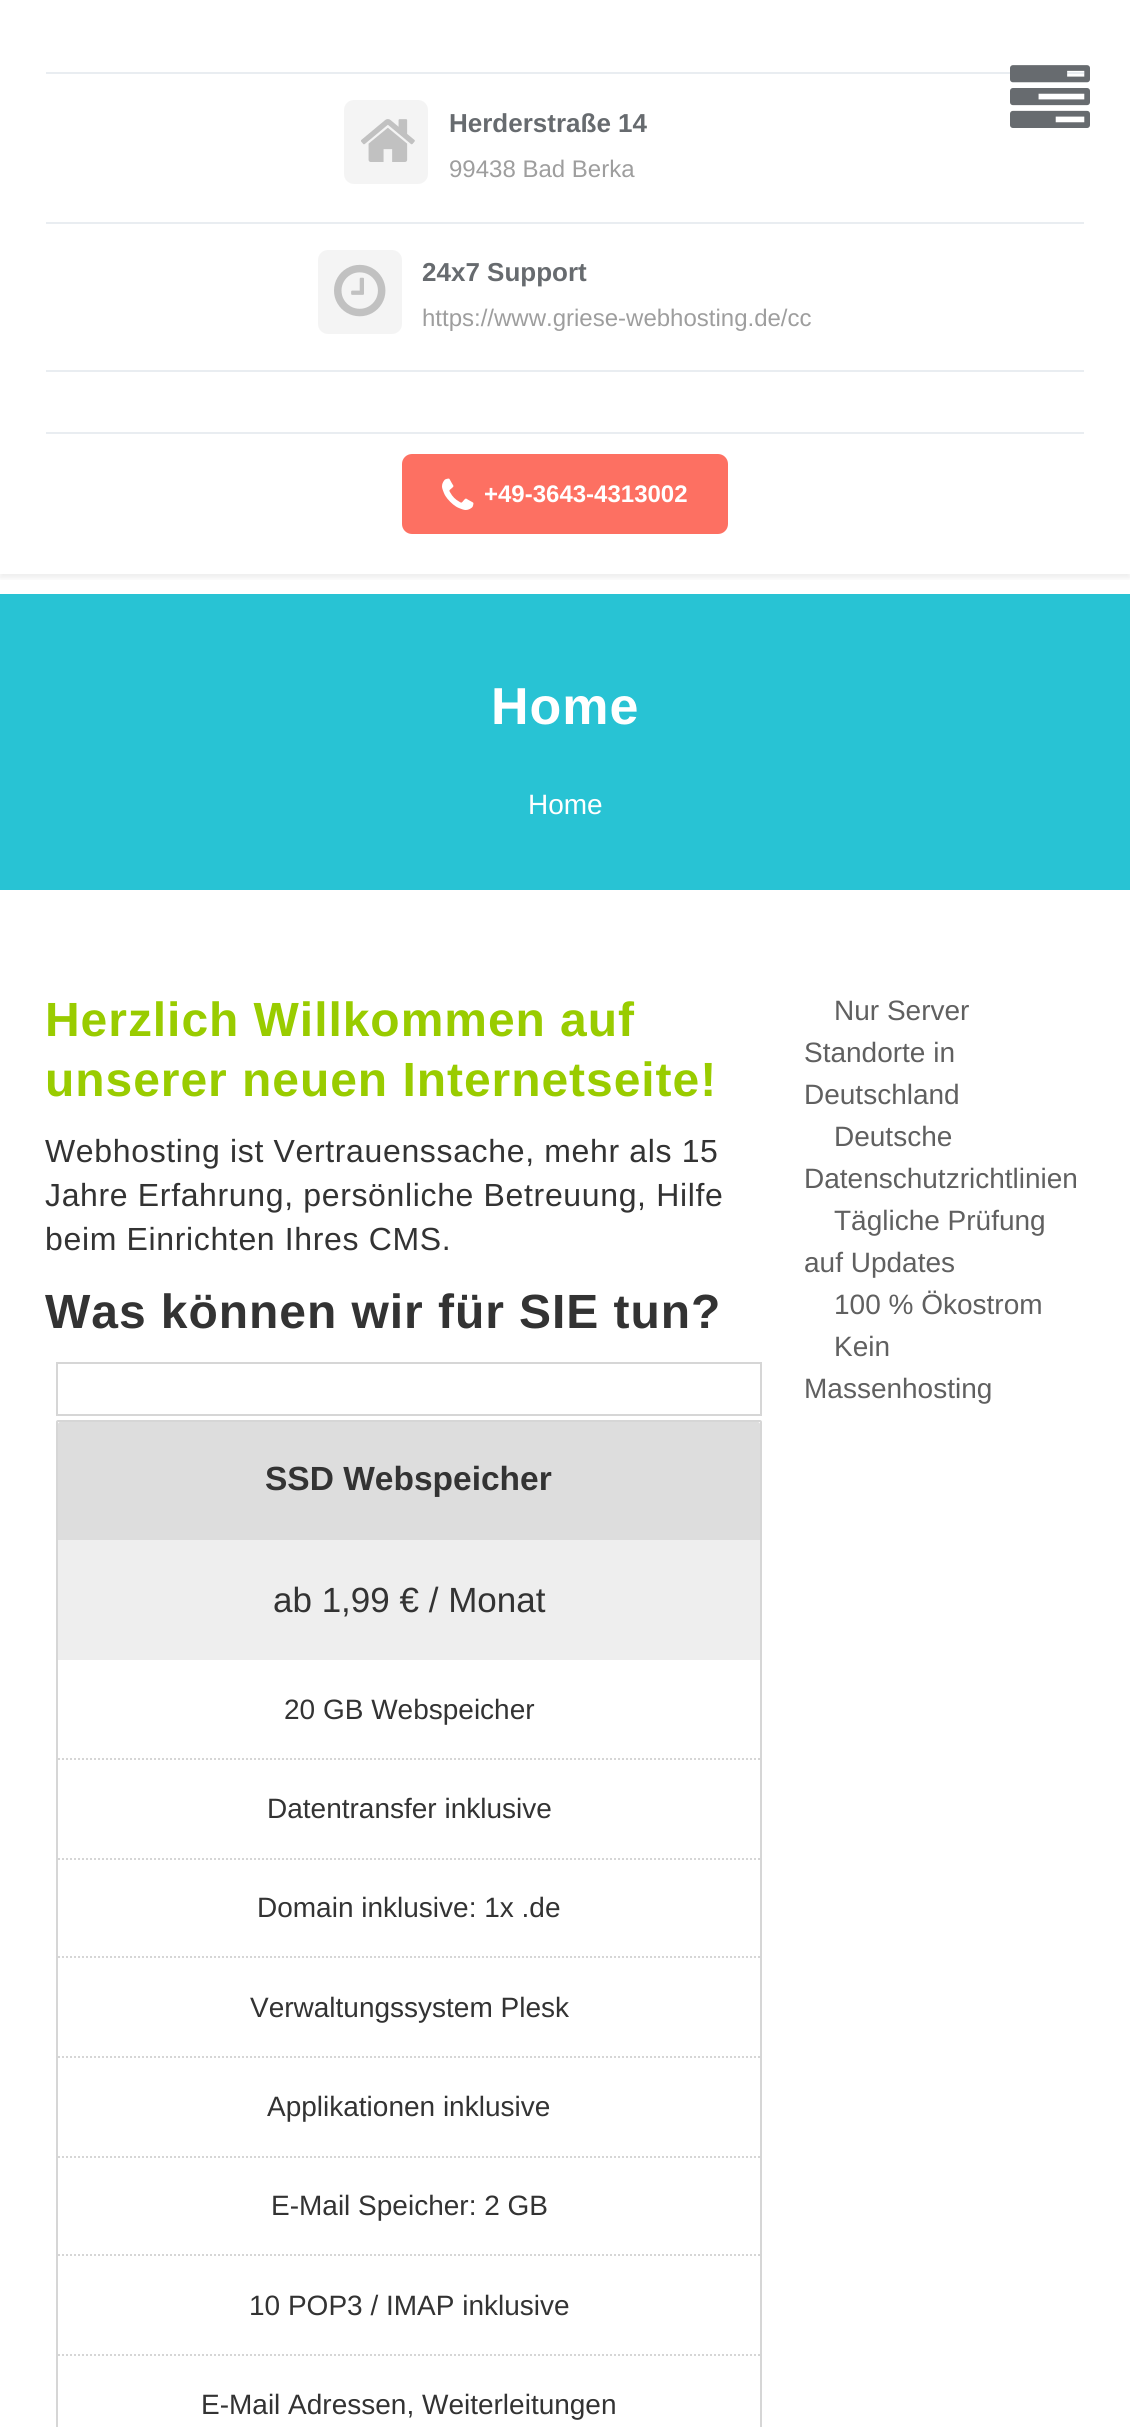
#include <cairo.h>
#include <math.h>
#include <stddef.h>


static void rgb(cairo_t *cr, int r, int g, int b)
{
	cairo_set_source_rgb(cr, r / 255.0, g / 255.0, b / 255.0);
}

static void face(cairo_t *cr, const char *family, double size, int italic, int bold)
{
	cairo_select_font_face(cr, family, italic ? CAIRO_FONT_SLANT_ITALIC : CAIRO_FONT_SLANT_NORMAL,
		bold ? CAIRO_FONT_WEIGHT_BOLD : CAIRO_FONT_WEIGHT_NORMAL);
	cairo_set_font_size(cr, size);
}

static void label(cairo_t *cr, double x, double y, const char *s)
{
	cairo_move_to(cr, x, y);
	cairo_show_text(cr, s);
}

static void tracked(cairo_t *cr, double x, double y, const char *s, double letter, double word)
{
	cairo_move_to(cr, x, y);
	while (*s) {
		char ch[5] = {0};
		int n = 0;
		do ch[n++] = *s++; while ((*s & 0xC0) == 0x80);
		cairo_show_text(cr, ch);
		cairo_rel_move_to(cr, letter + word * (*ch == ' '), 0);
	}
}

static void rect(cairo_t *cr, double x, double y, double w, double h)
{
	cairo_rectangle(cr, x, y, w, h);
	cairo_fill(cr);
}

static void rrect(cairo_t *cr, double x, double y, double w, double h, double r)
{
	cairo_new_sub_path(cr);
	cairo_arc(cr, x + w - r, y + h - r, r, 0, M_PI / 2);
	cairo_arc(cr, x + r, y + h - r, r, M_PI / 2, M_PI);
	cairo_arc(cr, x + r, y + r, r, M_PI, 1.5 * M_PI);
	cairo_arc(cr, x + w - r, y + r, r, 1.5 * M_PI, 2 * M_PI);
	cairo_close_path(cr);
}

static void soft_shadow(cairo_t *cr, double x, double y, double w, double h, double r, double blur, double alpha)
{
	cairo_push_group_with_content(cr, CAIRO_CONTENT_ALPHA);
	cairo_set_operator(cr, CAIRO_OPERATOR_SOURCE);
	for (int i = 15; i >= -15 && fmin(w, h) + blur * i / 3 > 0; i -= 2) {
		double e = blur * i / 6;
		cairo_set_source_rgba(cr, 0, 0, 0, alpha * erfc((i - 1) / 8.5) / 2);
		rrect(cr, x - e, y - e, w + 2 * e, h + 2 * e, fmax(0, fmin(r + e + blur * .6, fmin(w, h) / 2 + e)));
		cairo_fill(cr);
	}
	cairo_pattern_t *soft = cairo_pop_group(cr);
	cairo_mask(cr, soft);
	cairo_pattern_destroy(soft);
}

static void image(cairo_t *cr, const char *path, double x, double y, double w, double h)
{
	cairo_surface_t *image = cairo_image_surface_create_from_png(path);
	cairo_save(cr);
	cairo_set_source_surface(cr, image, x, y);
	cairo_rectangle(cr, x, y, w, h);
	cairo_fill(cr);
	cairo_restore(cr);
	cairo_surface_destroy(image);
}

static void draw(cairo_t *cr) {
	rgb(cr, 255, 255, 255);
	cairo_paint(cr);
	cairo_save(cr);
	cairo_rectangle(cr, 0, 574, 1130, 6);
	cairo_clip(cr);
	rgb(cr, 31, 31, 31);
	soft_shadow(cr, 0, 24, 1130, 554, 0, 3, 0.08);
	cairo_restore(cr);
	rgb(cr, 233, 237, 241);
	rect(cr, 46, 72, 1038, 2);
	image(cr, "image0.png", 1010, 65, 80, 63);
	rgb(cr, 244, 244, 244);
	rrect(cr, 344, 100, 84, 84, 10);
	cairo_fill(cr);
	image(cr, "image1.png", 361, 119, 54, 43);
	face(cr, "Liberation Sans", 26, 0, 1);
	rgb(cr, 103, 107, 111);
	label(cr, 449, 132, "Herderstraße 14");
	face(cr, "Liberation Sans", 24, 0, 0);
	rgb(cr, 158, 158, 158);
	label(cr, 449, 177, "99438 Bad Berka");
	rgb(cr, 233, 237, 241);
	rect(cr, 46, 222, 1038, 2);
	rgb(cr, 244, 244, 244);
	rrect(cr, 318, 250, 84, 84, 10);
	cairo_fill(cr);
	image(cr, "image2.png", 334, 264, 52, 53);
	face(cr, "Liberation Sans", 26, 0, 1);
	rgb(cr, 103, 107, 111);
	label(cr, 422, 281, "24x7 Support");
	face(cr, "Liberation Sans", 24, 0, 0);
	rgb(cr, 158, 158, 158);
	label(cr, 422, 326, "https://www.griese-webhosting.de/cc");
	rgb(cr, 233, 237, 241);
	rect(cr, 46, 370, 1038, 2);
	rect(cr, 46, 432, 1038, 2);
	rgb(cr, 253, 112, 98);
	rrect(cr, 402, 454, 326, 80, 10);
	cairo_fill(cr);
	image(cr, "image3.png", 442, 478, 32, 32);
	face(cr, "Liberation Sans", 24, 0, 1);
	rgb(cr, 255, 255, 255);
	label(cr, 484, 502, "+49-3643-4313002");
	rgb(cr, 40, 195, 212);
	rect(cr, 0, 594, 1130, 296);
	face(cr, "Liberation Sans", 52, 0, 1);
	rgb(cr, 255, 255, 255);
	tracked(cr, 491, 724, "Home", 1, 0);
	face(cr, "Liberation Sans", 28, 0, 0);
	label(cr, 528, 814, "Home");
	face(cr, "Liberation Sans", 48, 0, 1);
	rgb(cr, 153, 204, 0);
	tracked(cr, 45, 1036, "Herzlich Willkommen auf", 0.95, 0);
	tracked(cr, 45, 1096, "unserer neuen Internetseite!", 0.95, 0);
	face(cr, "Liberation Sans", 32, 0, 0);
	rgb(cr, 51, 51, 51);
	tracked(cr, 45, 1162, "Webhosting ist Vertrauenssache, mehr als 15", 0.65, 0);
	tracked(cr, 45, 1206, "Jahre Erfahrung, persönliche Betreuung, Hilfe", 0.65, 0);
	tracked(cr, 45, 1250, "beim Einrichten Ihres CMS.", 0.65, 0);
	face(cr, "Liberation Sans", 48, 0, 1);
	tracked(cr, 45, 1328, "Was können wir für SIE tun?", 0.95, 0);
	cairo_rectangle(cr, 57, 1363, 704, 52);
	rgb(cr, 214, 214, 214);
	cairo_stroke(cr);
	rrect(cr, 57, 1421, 704, 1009, 1);
	cairo_stroke(cr);
	rgb(cr, 221, 221, 221);
	cairo_new_path(cr);
	cairo_move_to(cr, 60, 1422);
	cairo_line_to(cr, 758, 1422);
	cairo_curve_to(cr, 759, 1422, 760, 1423, 760, 1424);
	cairo_line_to(cr, 760, 1540);
	cairo_line_to(cr, 58, 1540);
	cairo_line_to(cr, 58, 1424);
	cairo_curve_to(cr, 58, 1423, 59, 1422, 60, 1422);
	cairo_close_path(cr);
	cairo_fill(cr);
	face(cr, "Liberation Sans", 33.5, 0, 1);
	rgb(cr, 51, 51, 51);
	label(cr, 265, 1490, "SSD Webspeicher");
	rgb(cr, 238, 238, 238);
	rect(cr, 58, 1540, 702, 120);
	face(cr, "Liberation Sans", 35, 0, 0);
	rgb(cr, 51, 51, 51);
	label(cr, 273, 1612, "ab 1,99 € / Monat");
	cairo_new_path(cr);
	cairo_move_to(cr, 58, 1759);
	cairo_line_to(cr, 760, 1759);
	rgb(cr, 214, 214, 214);
	cairo_set_dash(cr, (double[]){2, 2}, 2, 0);
	cairo_stroke(cr);
	face(cr, "Liberation Sans", 28, 0, 0);
	rgb(cr, 51, 51, 51);
	label(cr, 284, 1719, "20 GB Webspeicher");
	cairo_new_path(cr);
	cairo_move_to(cr, 58, 1859);
	cairo_line_to(cr, 760, 1859);
	rgb(cr, 214, 214, 214);
	cairo_stroke(cr);
	rgb(cr, 51, 51, 51);
	label(cr, 267, 1818, "Datentransfer inklusive");
	cairo_new_path(cr);
	cairo_move_to(cr, 58, 1957);
	cairo_line_to(cr, 760, 1957);
	rgb(cr, 214, 214, 214);
	cairo_stroke(cr);
	rgb(cr, 51, 51, 51);
	label(cr, 257, 1917, "Domain inklusive: 1x .de");
	cairo_new_path(cr);
	cairo_move_to(cr, 58, 2057);
	cairo_line_to(cr, 760, 2057);
	rgb(cr, 214, 214, 214);
	cairo_stroke(cr);
	rgb(cr, 51, 51, 51);
	label(cr, 250, 2017, "Verwaltungssystem Plesk");
	cairo_new_path(cr);
	cairo_move_to(cr, 58, 2157);
	cairo_line_to(cr, 760, 2157);
	rgb(cr, 214, 214, 214);
	cairo_stroke(cr);
	rgb(cr, 51, 51, 51);
	label(cr, 267, 2116, "Applikationen inklusive");
	cairo_new_path(cr);
	cairo_move_to(cr, 58, 2255);
	cairo_line_to(cr, 760, 2255);
	rgb(cr, 214, 214, 214);
	cairo_stroke(cr);
	rgb(cr, 51, 51, 51);
	label(cr, 271, 2215, "E-Mail Speicher: 2 GB");
	cairo_new_path(cr);
	cairo_move_to(cr, 58, 2355);
	cairo_line_to(cr, 760, 2355);
	rgb(cr, 214, 214, 214);
	cairo_stroke(cr);
	rgb(cr, 51, 51, 51);
	label(cr, 249, 2315, "10 POP3 / IMAP inklusive");
	label(cr, 201, 2414, "E-Mail Adressen, Weiterleitungen");
	rgb(cr, 96, 96, 96);
	label(cr, 834, 1020, "Nur Server");
	label(cr, 804, 1062, "Standorte in");
	label(cr, 804, 1104, "Deutschland");
	label(cr, 834, 1146, "Deutsche");
	label(cr, 804, 1188, "Datenschutzrichtlinien");
	label(cr, 834, 1230, "Tägliche Prüfung");
	label(cr, 804, 1272, "auf Updates");
	label(cr, 834, 1314, "100 % Ökostrom");
	label(cr, 834, 1356, "Kein");
	label(cr, 804, 1398, "Massenhosting");
}

int main(void) {
	cairo_surface_t *surface = cairo_image_surface_create(CAIRO_FORMAT_RGB24, 1130, 2427);
	cairo_t *cr = cairo_create(surface);
	cairo_font_options_t *options = cairo_font_options_create();
	cairo_font_options_set_hint_metrics(options, CAIRO_HINT_METRICS_OFF);
	cairo_font_options_set_hint_style(options, CAIRO_HINT_STYLE_NONE);
	cairo_set_font_options(cr, options);
	cairo_set_miter_limit(cr, 4);
	draw(cr);
	cairo_surface_write_to_png(surface, "render.png");
	cairo_font_options_destroy(options);
	cairo_destroy(cr);
	cairo_surface_destroy(surface);
	return 0;
}
